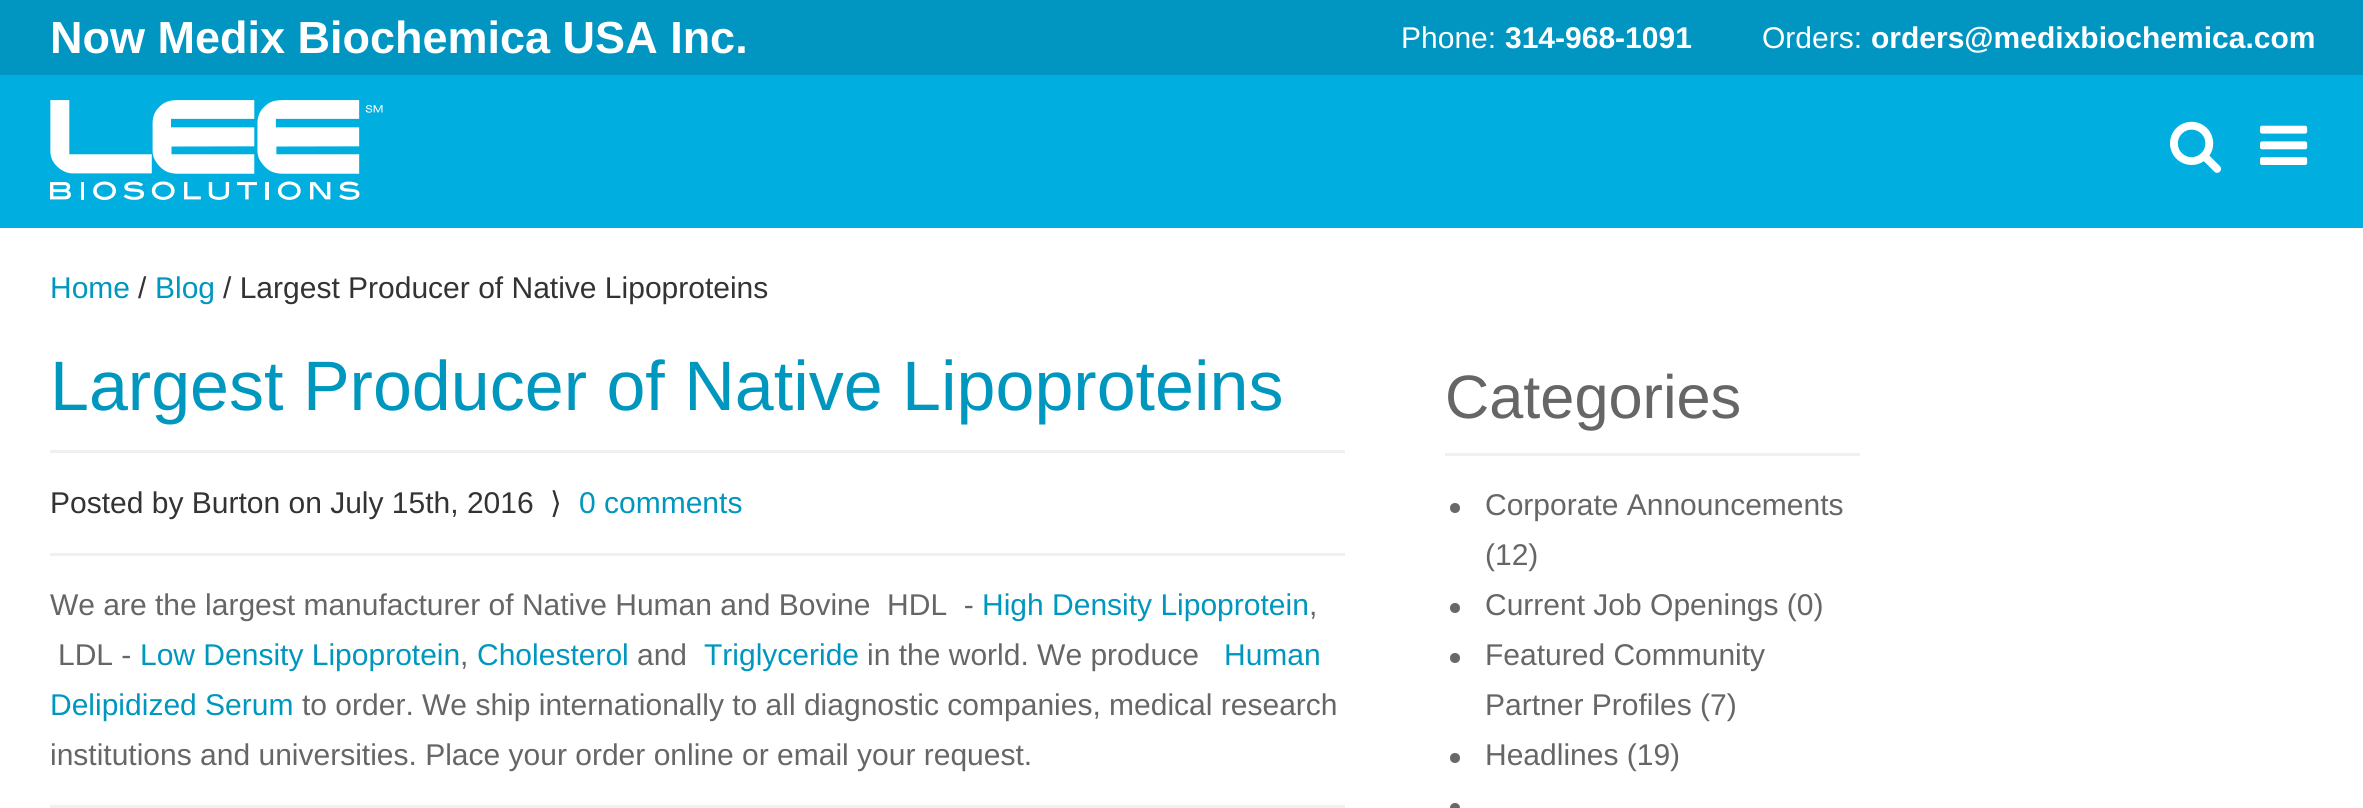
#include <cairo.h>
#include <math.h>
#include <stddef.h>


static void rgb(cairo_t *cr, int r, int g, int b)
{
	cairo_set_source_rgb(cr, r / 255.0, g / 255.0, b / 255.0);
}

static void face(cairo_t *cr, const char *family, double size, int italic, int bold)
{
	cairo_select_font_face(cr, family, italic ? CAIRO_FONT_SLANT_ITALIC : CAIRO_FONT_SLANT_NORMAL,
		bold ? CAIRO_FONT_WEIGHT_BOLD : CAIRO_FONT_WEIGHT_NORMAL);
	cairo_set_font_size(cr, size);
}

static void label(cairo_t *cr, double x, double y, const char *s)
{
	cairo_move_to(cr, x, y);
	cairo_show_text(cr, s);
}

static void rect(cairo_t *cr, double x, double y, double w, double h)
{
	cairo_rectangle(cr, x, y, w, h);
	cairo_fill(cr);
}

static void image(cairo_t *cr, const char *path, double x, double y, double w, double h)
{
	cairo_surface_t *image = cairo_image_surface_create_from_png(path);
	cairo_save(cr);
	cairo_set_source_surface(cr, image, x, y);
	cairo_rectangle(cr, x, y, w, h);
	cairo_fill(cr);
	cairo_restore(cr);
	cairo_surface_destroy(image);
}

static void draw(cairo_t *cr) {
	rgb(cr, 255, 255, 255);
	cairo_paint(cr);
	rgb(cr, 0, 150, 193);
	rect(cr, 0, 0, 2363, 75);
	face(cr, "Liberation Sans", 45, 0, 1);
	rgb(cr, 255, 255, 255);
	label(cr, 50, 53, "Now Medix Biochemica USA Inc.");
	face(cr, "Liberation Sans", 30, 0, 0);
	label(cr, 1401, 48, "Phone:");
	face(cr, "Liberation Sans", 30, 0, 1);
	label(cr, 1505, 48, "314-968-1091");
	face(cr, "Liberation Sans", 30, 0, 0);
	label(cr, 1762, 48, "Orders:");
	face(cr, "Liberation Sans", 30, 0, 1);
	label(cr, 1871, 48, "orders@medixbiochemica.com");
	rgb(cr, 0, 174, 223);
	rect(cr, 0, 75, 2363, 153);
	image(cr, "image0.png", 50, 100, 333, 100);
	image(cr, "image1.png", 2170, 121, 52, 52);
	image(cr, "image2.png", 2260, 125, 48, 40);
	face(cr, "Liberation Sans", 30, 0, 0);
	rgb(cr, 0, 151, 191);
	label(cr, 50, 298, "Home");
	rgb(cr, 51, 51, 51);
	label(cr, 138, 298, "/");
	rgb(cr, 0, 151, 191);
	label(cr, 155, 298, "Blog");
	rgb(cr, 51, 51, 51);
	label(cr, 223, 298, "/ Largest Producer of Native Lipoproteins");
	face(cr, "Liberation Sans", 70, 0, 0);
	rgb(cr, 0, 151, 191);
	label(cr, 50, 410, "Largest Producer of Native Lipoproteins");
	rgb(cr, 240, 240, 240);
	rect(cr, 50, 450, 1295, 3);
	rect(cr, 50, 553, 1295, 3);
	face(cr, "Liberation Sans", 30, 0, 0);
	rgb(cr, 51, 51, 51);
	label(cr, 50, 513, "Posted by Burton on July 15th, 2016");
	face(cr, "DejaVu Sans", 30, 0, 0);
	label(cr, 550, 513, "⟩");
	face(cr, "Liberation Sans", 30, 0, 0);
	rgb(cr, 0, 151, 191);
	label(cr, 579, 513, "0 comments");
	rgb(cr, 102, 102, 102);
	label(cr, 50, 615, "We are the largest manufacturer of Native Human and Bovine  HDL  -");
	rgb(cr, 0, 151, 191);
	label(cr, 982, 615, "High Density Lipoprotein");
	rgb(cr, 102, 102, 102);
	label(cr, 1309, 615, ",");
	label(cr, 58, 665, "LDL -");
	rgb(cr, 0, 151, 191);
	label(cr, 140, 665, "Low Density Lipoprotein");
	rgb(cr, 102, 102, 102);
	label(cr, 460, 665, ",");
	rgb(cr, 0, 151, 191);
	label(cr, 477, 665, "Cholesterol");
	rgb(cr, 102, 102, 102);
	label(cr, 637, 665, "and");
	rgb(cr, 0, 151, 191);
	label(cr, 704, 665, "Triglyceride");
	rgb(cr, 102, 102, 102);
	label(cr, 867, 665, "in the world. We produce");
	rgb(cr, 0, 151, 191);
	label(cr, 1224, 665, "Human");
	label(cr, 50, 715, "Delipidized Serum");
	rgb(cr, 102, 102, 102);
	label(cr, 302, 715, "to order. We ship internationally to all diagnostic companies, medical research");
	label(cr, 50, 765, "institutions and universities. Place your order online or email your request.");
	rgb(cr, 240, 240, 240);
	rect(cr, 50, 805, 1295, 3);
	rect(cr, 1445, 453, 415, 3);
	face(cr, "Arimo", 61.25, 0, 0);
	rgb(cr, 102, 102, 102);
	label(cr, 1445, 418, "Categories");
	rgb(cr, 104, 104, 104);
	cairo_new_path(cr);
	cairo_arc(cr, 1455, 508, 5, 0, 2 * M_PI);
	cairo_fill(cr);
	face(cr, "Liberation Sans", 30, 0, 0);
	rgb(cr, 102, 102, 102);
	label(cr, 1485, 515, "Corporate Announcements");
	label(cr, 1485, 565, "(12)");
	rgb(cr, 104, 104, 104);
	cairo_new_path(cr);
	cairo_arc(cr, 1455, 608, 5, 0, 2 * M_PI);
	cairo_fill(cr);
	rgb(cr, 102, 102, 102);
	label(cr, 1485, 615, "Current Job Openings (0)");
	rgb(cr, 104, 104, 104);
	cairo_new_path(cr);
	cairo_arc(cr, 1455, 658, 5, 0, 2 * M_PI);
	cairo_fill(cr);
	rgb(cr, 102, 102, 102);
	label(cr, 1485, 665, "Featured Community");
	label(cr, 1485, 715, "Partner Profiles (7)");
	rgb(cr, 104, 104, 104);
	cairo_new_path(cr);
	cairo_arc(cr, 1455, 758, 5, 0, 2 * M_PI);
	cairo_fill(cr);
	rgb(cr, 102, 102, 102);
	label(cr, 1485, 765, "Headlines (19)");
	rgb(cr, 104, 104, 104);
	cairo_new_path(cr);
	cairo_arc(cr, 1455, 808, 5, 0, 2 * M_PI);
	cairo_fill(cr);
}

int main(void) {
	cairo_surface_t *surface = cairo_image_surface_create(CAIRO_FORMAT_RGB24, 2363, 808);
	cairo_t *cr = cairo_create(surface);
	cairo_font_options_t *options = cairo_font_options_create();
	cairo_font_options_set_hint_metrics(options, CAIRO_HINT_METRICS_OFF);
	cairo_font_options_set_hint_style(options, CAIRO_HINT_STYLE_NONE);
	cairo_set_font_options(cr, options);
	cairo_set_miter_limit(cr, 4);
	draw(cr);
	cairo_surface_write_to_png(surface, "render.png");
	cairo_font_options_destroy(options);
	cairo_destroy(cr);
	cairo_surface_destroy(surface);
	return 0;
}
